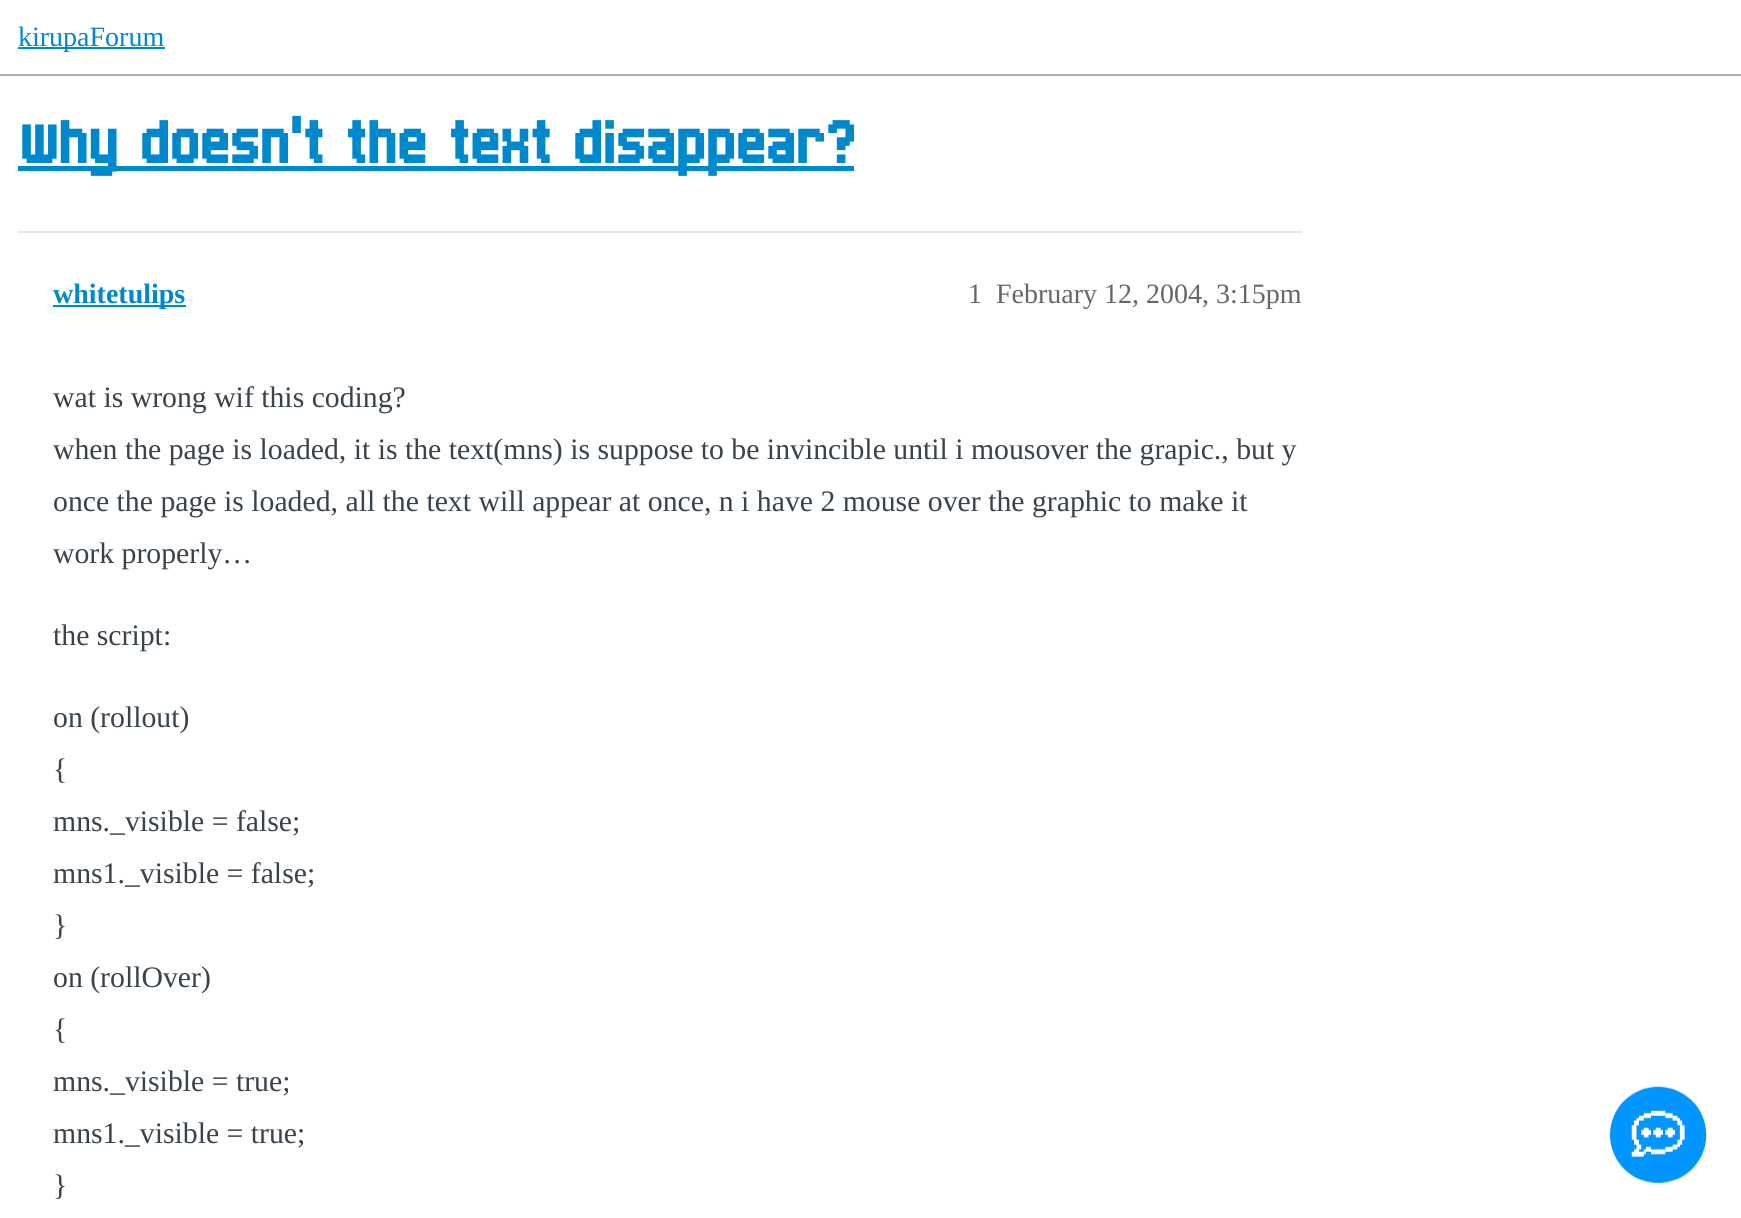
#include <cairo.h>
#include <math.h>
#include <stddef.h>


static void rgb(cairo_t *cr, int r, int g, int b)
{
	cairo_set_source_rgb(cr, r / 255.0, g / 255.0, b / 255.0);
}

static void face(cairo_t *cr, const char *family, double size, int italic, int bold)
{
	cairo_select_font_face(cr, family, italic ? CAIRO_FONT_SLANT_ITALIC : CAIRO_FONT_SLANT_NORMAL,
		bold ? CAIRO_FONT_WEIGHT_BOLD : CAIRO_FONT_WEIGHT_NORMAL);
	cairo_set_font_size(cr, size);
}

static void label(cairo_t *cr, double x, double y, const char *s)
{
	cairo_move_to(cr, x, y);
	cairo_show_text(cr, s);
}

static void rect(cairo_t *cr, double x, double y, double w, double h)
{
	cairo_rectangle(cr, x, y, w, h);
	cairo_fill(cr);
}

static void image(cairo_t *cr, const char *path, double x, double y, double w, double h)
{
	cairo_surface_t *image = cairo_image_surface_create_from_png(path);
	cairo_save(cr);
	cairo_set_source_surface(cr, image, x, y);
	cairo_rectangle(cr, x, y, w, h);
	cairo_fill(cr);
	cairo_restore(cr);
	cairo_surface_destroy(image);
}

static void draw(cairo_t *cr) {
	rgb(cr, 255, 255, 255);
	cairo_paint(cr);
	rgb(cr, 175, 175, 175);
	rect(cr, 0, 74, 1741, 2);
	rgb(cr, 0, 136, 204);
	rect(cr, 18, 47, 147, 2);
	face(cr, "Liberation Serif", 28, 0, 0);
	label(cr, 18, 46, "kirupaForum");
	rect(cr, 18, 166, 836, 5);
	face(cr, "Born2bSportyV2 Medium", 68.6, 0, 0);
	label(cr, 18, 163, "Why doesn't the text disappear?");
	rgb(cr, 233, 233, 233);
	rect(cr, 18, 231, 1284, 2);
	rgb(cr, 0, 136, 204);
	rect(cr, 53, 305, 133, 2);
	face(cr, "Liberation Serif", 28, 0, 1);
	label(cr, 53, 303, "whitetulips");
	face(cr, "Liberation Serif", 28, 0, 0);
	rgb(cr, 102, 102, 102);
	label(cr, 968, 303, "1");
	label(cr, 996, 303, "February 12, 2004, 3:15pm");
	face(cr, "Liberation Serif", 29.75, 0, 0);
	rgb(cr, 57, 67, 76);
	label(cr, 53, 407, "wat is wrong wif this coding?");
	label(cr, 53, 459, "when the page is loaded, it is the text(mns) is suppose to be invincible until i mousover the grapic., but y");
	label(cr, 53, 511, "once the page is loaded, all the text will appear at once, n i have 2 mouse over the graphic to make it");
	label(cr, 53, 563, "work properly…");
	label(cr, 53, 645, "the script:");
	label(cr, 53, 727, "on (rollout)");
	label(cr, 53, 779, "{");
	label(cr, 53, 831, "mns._visible = false;");
	label(cr, 53, 883, "mns1._visible = false;");
	label(cr, 53, 935, "}");
	label(cr, 53, 987, "on (rollOver)");
	label(cr, 53, 1039, "{");
	label(cr, 53, 1091, "mns._visible = true;");
	label(cr, 53, 1143, "mns1._visible = true;");
	label(cr, 53, 1195, "}");
	image(cr, "image0.png", 1610, 1086, 97, 98);
}

int main(void) {
	cairo_surface_t *surface = cairo_image_surface_create(CAIRO_FORMAT_RGB24, 1741, 1218);
	cairo_t *cr = cairo_create(surface);
	cairo_font_options_t *options = cairo_font_options_create();
	cairo_font_options_set_hint_metrics(options, CAIRO_HINT_METRICS_OFF);
	cairo_font_options_set_hint_style(options, CAIRO_HINT_STYLE_NONE);
	cairo_set_font_options(cr, options);
	cairo_set_miter_limit(cr, 4);
	draw(cr);
	cairo_surface_write_to_png(surface, "render.png");
	cairo_font_options_destroy(options);
	cairo_destroy(cr);
	cairo_surface_destroy(surface);
	return 0;
}
